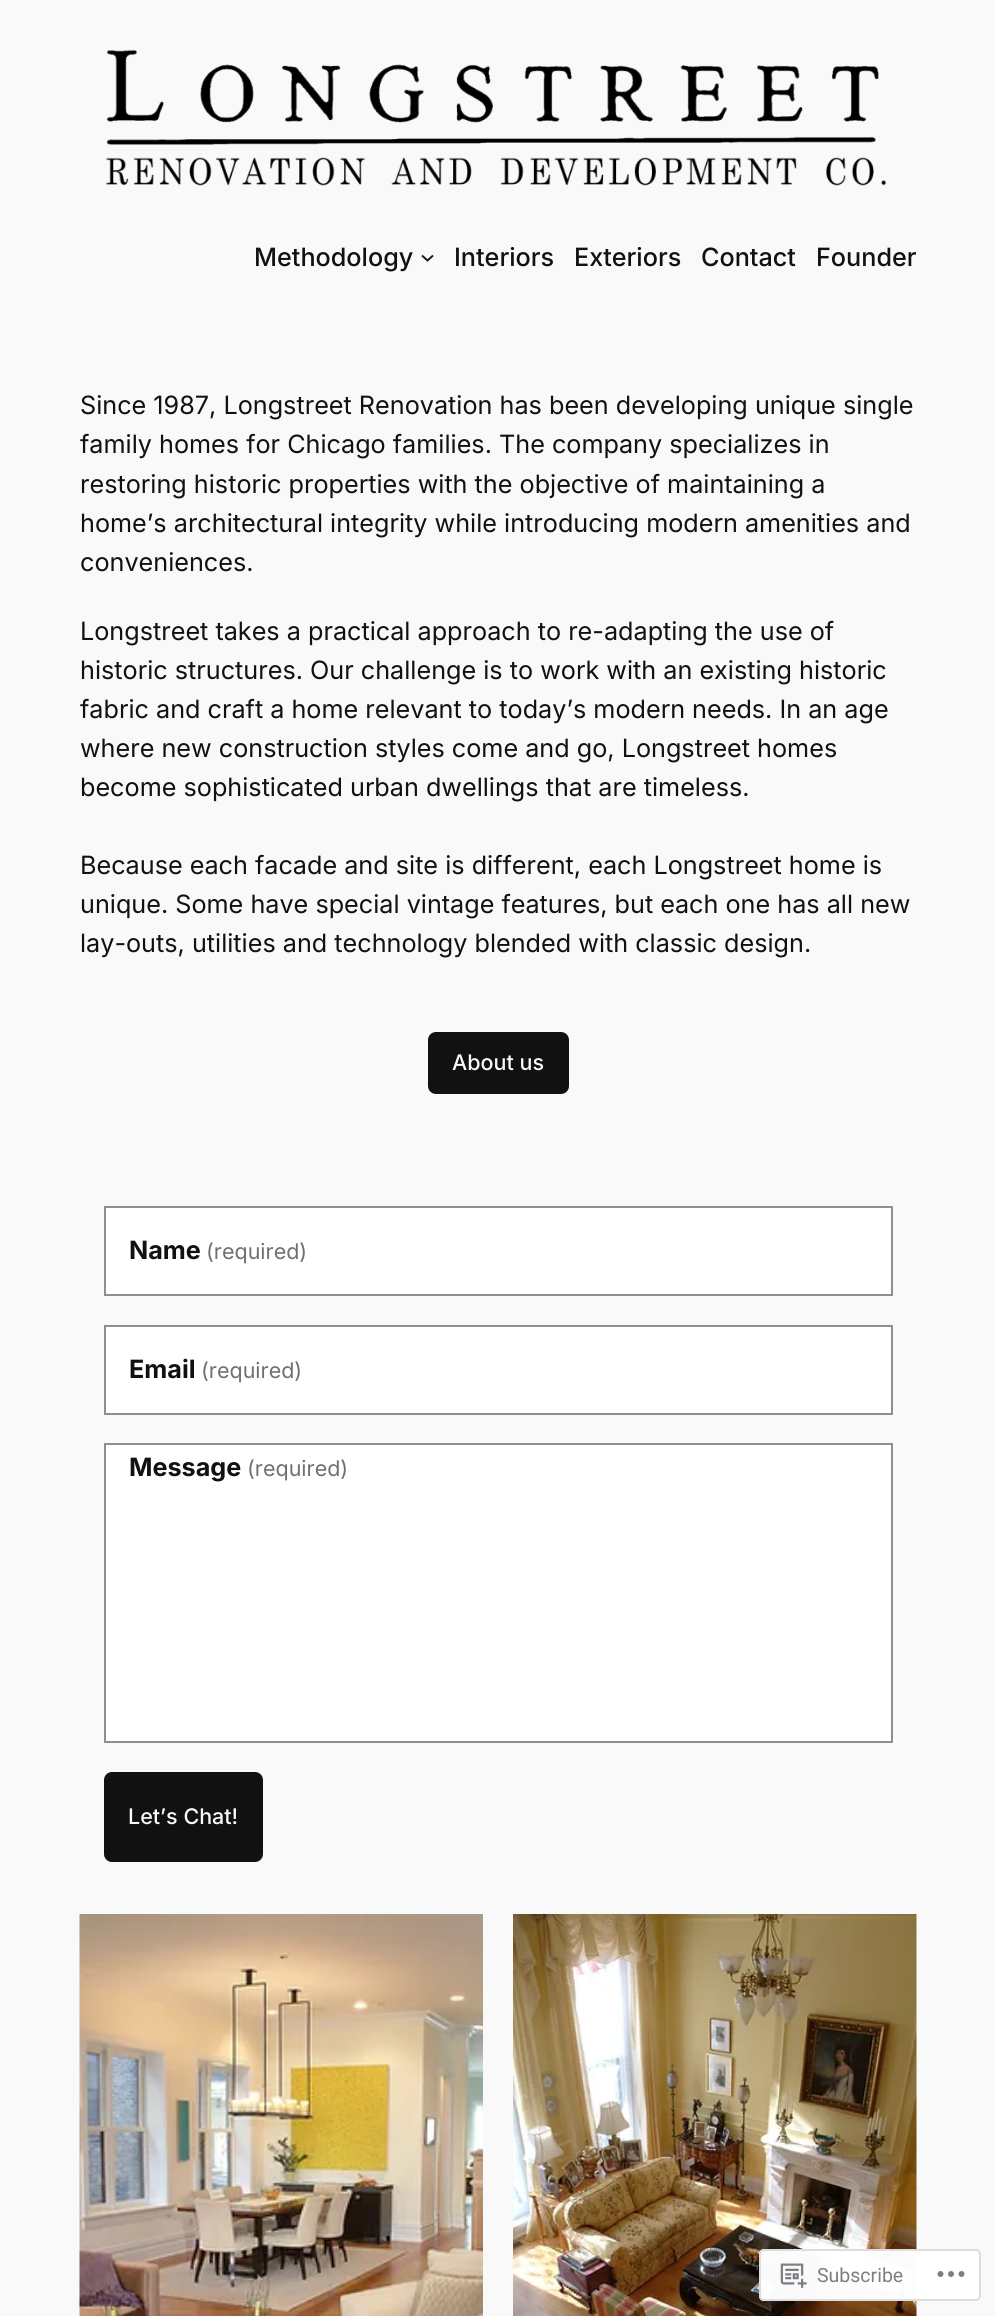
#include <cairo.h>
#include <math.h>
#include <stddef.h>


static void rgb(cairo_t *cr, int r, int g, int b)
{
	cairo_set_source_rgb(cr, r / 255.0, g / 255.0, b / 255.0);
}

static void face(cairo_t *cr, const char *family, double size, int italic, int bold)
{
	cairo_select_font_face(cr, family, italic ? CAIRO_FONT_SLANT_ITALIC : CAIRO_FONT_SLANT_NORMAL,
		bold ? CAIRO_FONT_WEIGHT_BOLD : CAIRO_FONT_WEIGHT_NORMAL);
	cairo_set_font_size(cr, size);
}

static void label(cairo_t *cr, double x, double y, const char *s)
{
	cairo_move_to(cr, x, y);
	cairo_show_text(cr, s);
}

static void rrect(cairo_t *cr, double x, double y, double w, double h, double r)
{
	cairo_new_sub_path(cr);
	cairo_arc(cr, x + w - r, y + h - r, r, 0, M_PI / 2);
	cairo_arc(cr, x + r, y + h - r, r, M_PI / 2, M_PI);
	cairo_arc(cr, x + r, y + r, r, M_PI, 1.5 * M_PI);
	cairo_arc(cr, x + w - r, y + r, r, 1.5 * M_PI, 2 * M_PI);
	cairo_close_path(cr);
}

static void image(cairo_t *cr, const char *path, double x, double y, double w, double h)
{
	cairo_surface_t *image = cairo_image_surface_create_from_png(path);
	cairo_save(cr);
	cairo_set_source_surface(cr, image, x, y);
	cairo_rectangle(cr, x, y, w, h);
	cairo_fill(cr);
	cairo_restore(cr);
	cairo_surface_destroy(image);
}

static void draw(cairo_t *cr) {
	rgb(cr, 249, 249, 249);
	cairo_paint(cr);
	image(cr, "image0.png", 106, 49, 781, 137);
	face(cr, "Inter Medium", 25.2, 0, 0);
	rgb(cr, 17, 17, 17);
	label(cr, 254, 266, "Methodology");
	cairo_new_path(cr);
	cairo_move_to(cr, 422, 255.5);
	cairo_line_to(cr, 427.5, 260.5);
	cairo_line_to(cr, 433, 255.5);
	cairo_set_line_width(cr, 1.9);
	cairo_stroke(cr);
	label(cr, 454, 266, "Interiors");
	label(cr, 574, 266, "Exteriors");
	label(cr, 701, 266, "Contact");
	label(cr, 816, 266, "Founder");
	face(cr, "Inter", 25.2, 0, 0);
	label(cr, 80, 414, "Since 1987, Longstreet Renovation has been developing unique single");
	label(cr, 80, 453, "family homes for Chicago families. The company specializes in");
	label(cr, 80, 493, "restoring historic properties with the objective of maintaining a");
	label(cr, 80, 532, "home’s architectural integrity while introducing modern amenities and");
	label(cr, 80, 571, "conveniences.");
	label(cr, 80, 640, "Longstreet takes a practical approach to re-adapting the use of");
	label(cr, 80, 679, "historic structures. Our challenge is to work with an existing historic");
	label(cr, 80, 718, "fabric and craft a home relevant to today’s modern needs. In an age");
	label(cr, 80, 757, "where new construction styles come and go, Longstreet homes");
	label(cr, 80, 796, "become sophisticated urban dwellings that are timeless.");
	label(cr, 80, 874, "Because each facade and site is different, each Longstreet home is");
	label(cr, 80, 913, "unique. Some have special vintage features, but each one has all new");
	label(cr, 80, 952, "lay-outs, utilities and technology blended with classic design.");
	rrect(cr, 428, 1032, 141, 62, 8);
	cairo_fill(cr);
	face(cr, "Inter Medium", 21.5, 0, 0);
	rgb(cr, 249, 249, 249);
	label(cr, 452, 1070, "About us");
	rgb(cr, 255, 255, 255);
	cairo_rectangle(cr, 105, 1207, 787, 88);
	cairo_fill_preserve(cr);
	rgb(cr, 140, 143, 148);
	cairo_set_line_width(cr, 2);
	cairo_stroke(cr);
	face(cr, "Inter", 25.2, 0, 1);
	rgb(cr, 17, 17, 17);
	label(cr, 129, 1259, "Name");
	face(cr, "Inter", 21.5, 0, 0);
	rgb(cr, 112, 112, 112);
	label(cr, 206, 1259, "(required)");
	rgb(cr, 255, 255, 255);
	cairo_rectangle(cr, 105, 1326, 787, 88);
	cairo_fill_preserve(cr);
	rgb(cr, 140, 143, 148);
	cairo_stroke(cr);
	face(cr, "Inter", 25.2, 0, 1);
	rgb(cr, 17, 17, 17);
	label(cr, 129, 1378, "Email");
	face(cr, "Inter", 21.5, 0, 0);
	rgb(cr, 112, 112, 112);
	label(cr, 201, 1378, "(required)");
	rgb(cr, 255, 255, 255);
	cairo_rectangle(cr, 105, 1444, 787, 298);
	cairo_fill_preserve(cr);
	rgb(cr, 140, 143, 148);
	cairo_stroke(cr);
	face(cr, "Inter", 25.2, 0, 1);
	rgb(cr, 17, 17, 17);
	label(cr, 129, 1476, "Message");
	face(cr, "Inter", 21.5, 0, 0);
	rgb(cr, 112, 112, 112);
	label(cr, 247, 1476, "(required)");
	rgb(cr, 17, 17, 17);
	rrect(cr, 104, 1772, 159, 90, 8);
	cairo_fill(cr);
	face(cr, "Inter Medium", 21.5, 0, 0);
	rgb(cr, 249, 249, 249);
	label(cr, 128, 1824, "Let’s Chat!");
	image(cr, "image1.png", 79, 1914, 404, 402);
	image(cr, "image2.png", 513, 1914, 404, 402);
	cairo_set_source_rgba(cr, 1, 1, 1, 0.98);
	rrect(cr, 759, 2249, 222, 52, 5);
	cairo_fill(cr);
	rrect(cr, 760, 2250, 220, 50, 4);
	cairo_set_source_rgba(cr, 0.863, 0.863, 0.871, 0.98);
	cairo_stroke(cr);
	image(cr, "image3.png", 780, 2263, 27, 25);
	face(cr, "Roboto", 19.5, 0, 0);
	rgb(cr, 123, 127, 132);
	label(cr, 817, 2282, "Subscribe");
	image(cr, "image4.png", 937, 2271, 28, 6);
}

int main(void) {
	cairo_surface_t *surface = cairo_image_surface_create(CAIRO_FORMAT_RGB24, 995, 2316);
	cairo_t *cr = cairo_create(surface);
	cairo_font_options_t *options = cairo_font_options_create();
	cairo_font_options_set_hint_metrics(options, CAIRO_HINT_METRICS_OFF);
	cairo_font_options_set_hint_style(options, CAIRO_HINT_STYLE_NONE);
	cairo_set_font_options(cr, options);
	cairo_set_miter_limit(cr, 4);
	draw(cr);
	cairo_surface_write_to_png(surface, "render.png");
	cairo_font_options_destroy(options);
	cairo_destroy(cr);
	cairo_surface_destroy(surface);
	return 0;
}
